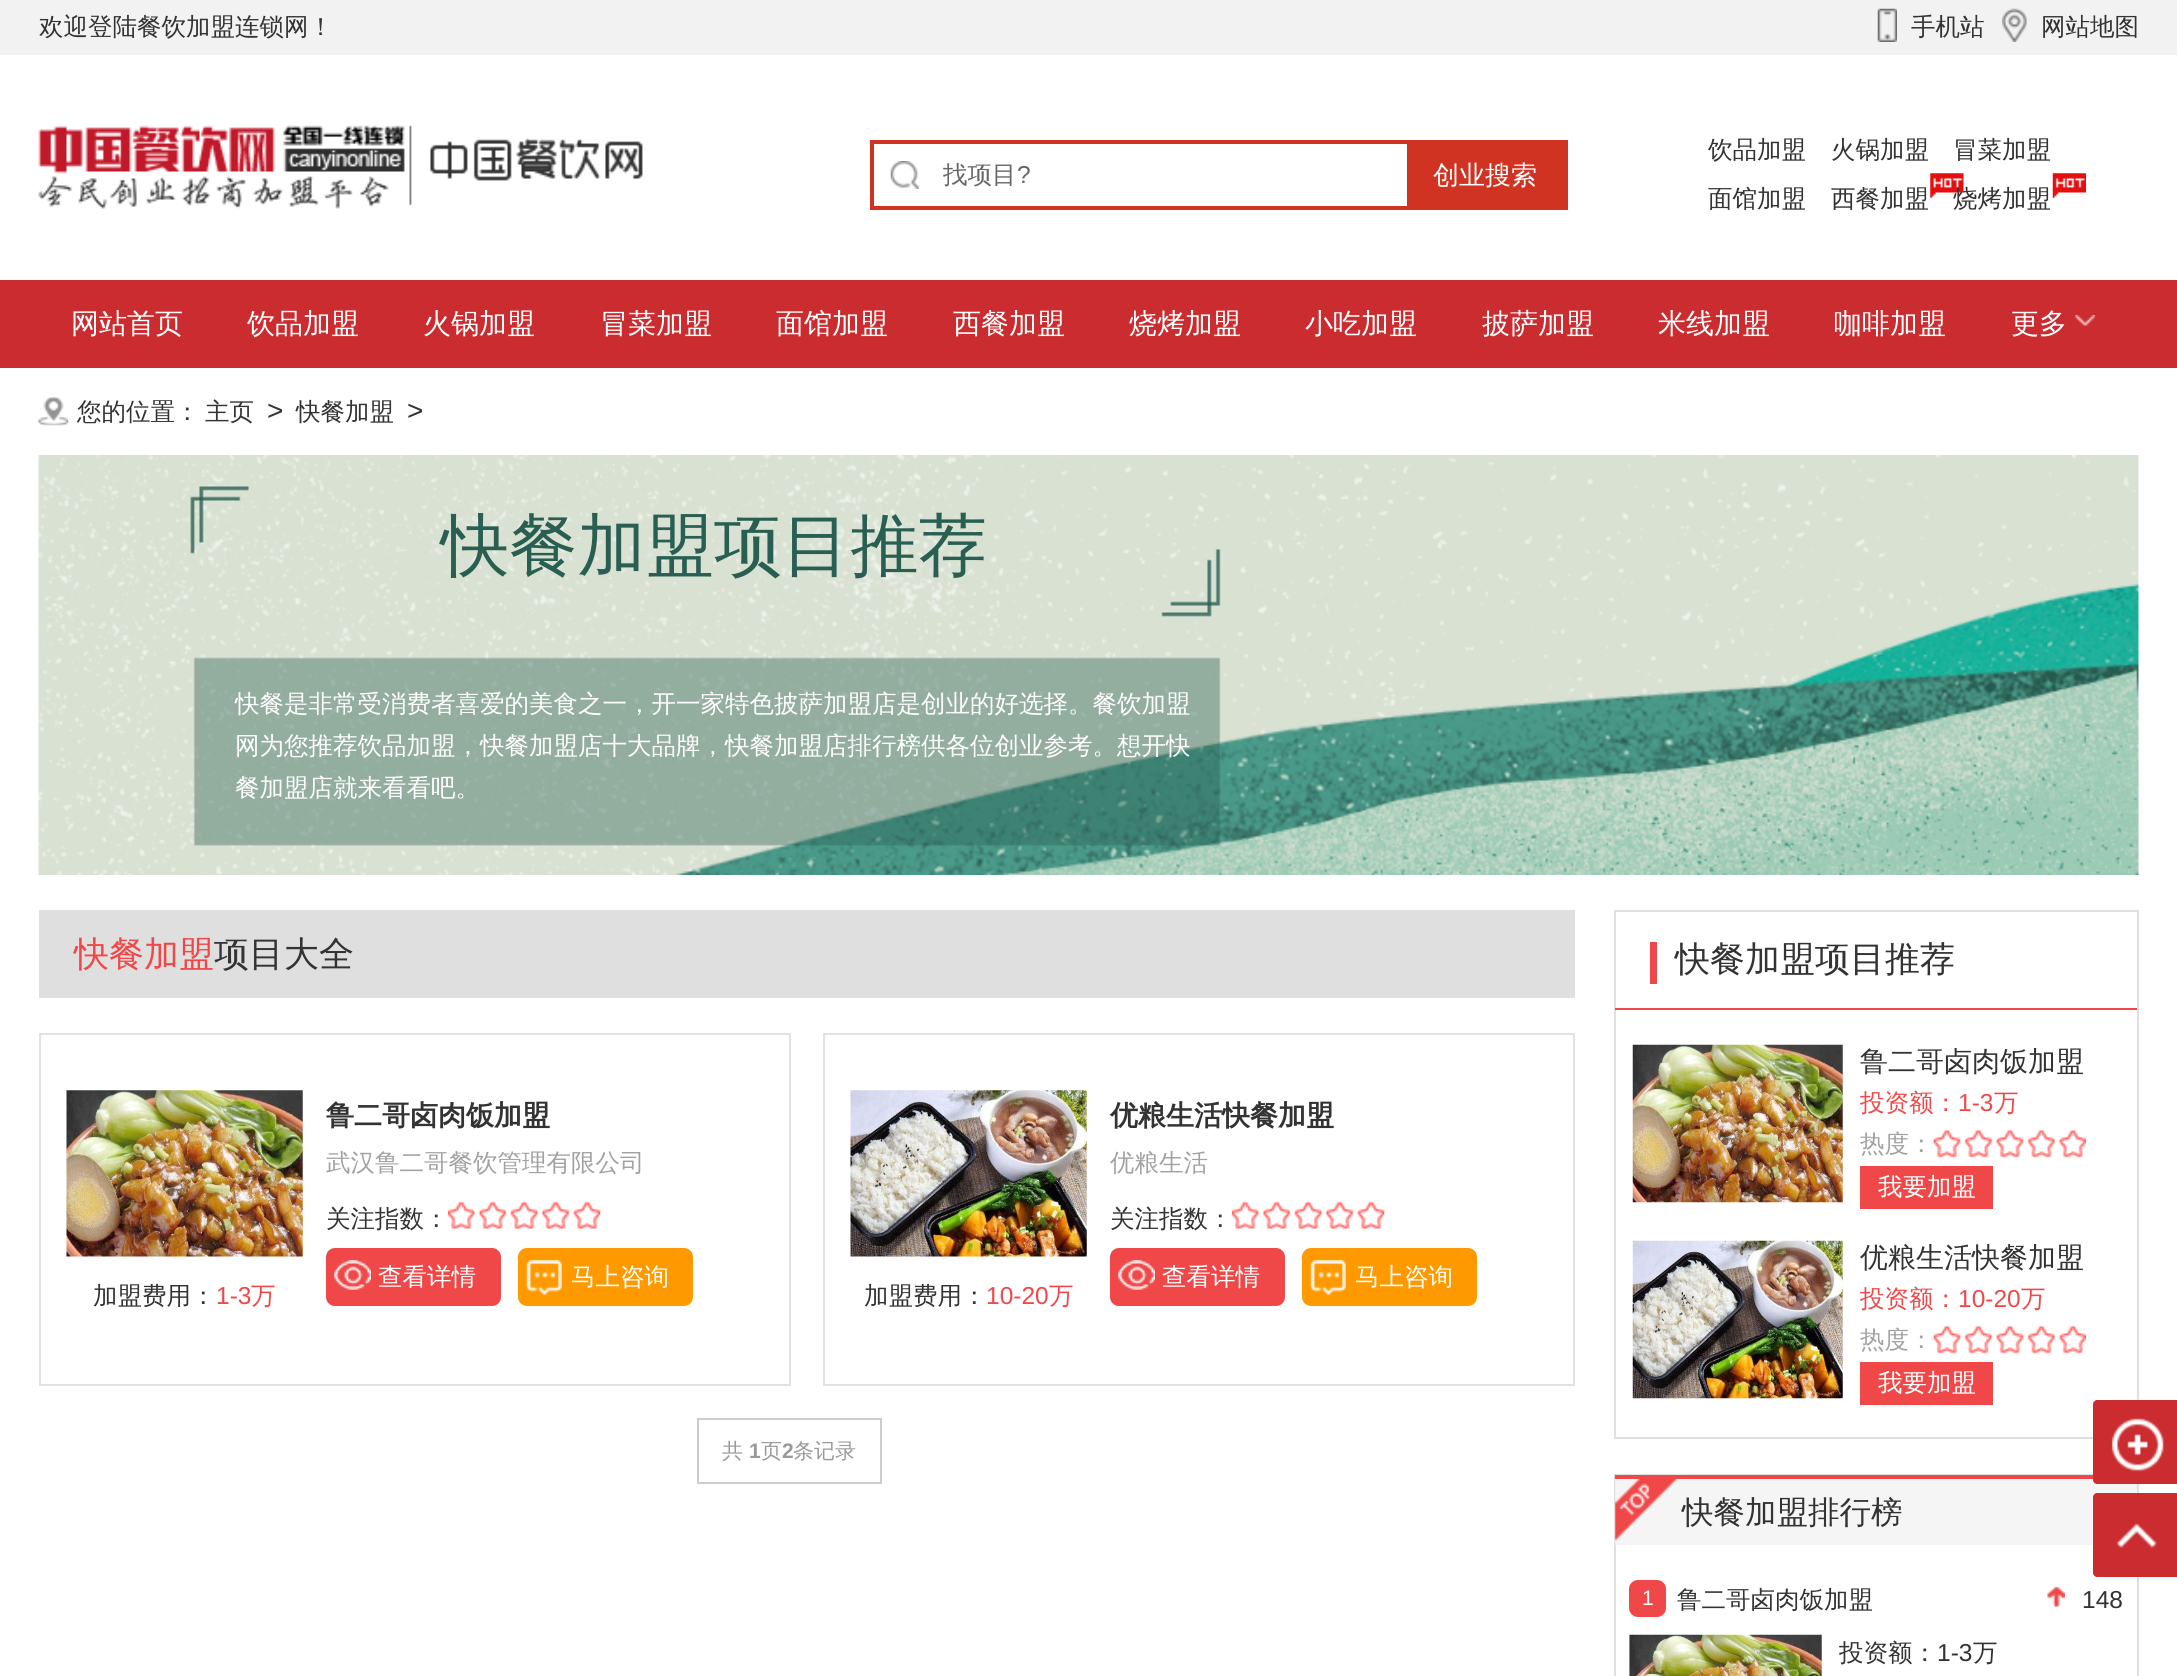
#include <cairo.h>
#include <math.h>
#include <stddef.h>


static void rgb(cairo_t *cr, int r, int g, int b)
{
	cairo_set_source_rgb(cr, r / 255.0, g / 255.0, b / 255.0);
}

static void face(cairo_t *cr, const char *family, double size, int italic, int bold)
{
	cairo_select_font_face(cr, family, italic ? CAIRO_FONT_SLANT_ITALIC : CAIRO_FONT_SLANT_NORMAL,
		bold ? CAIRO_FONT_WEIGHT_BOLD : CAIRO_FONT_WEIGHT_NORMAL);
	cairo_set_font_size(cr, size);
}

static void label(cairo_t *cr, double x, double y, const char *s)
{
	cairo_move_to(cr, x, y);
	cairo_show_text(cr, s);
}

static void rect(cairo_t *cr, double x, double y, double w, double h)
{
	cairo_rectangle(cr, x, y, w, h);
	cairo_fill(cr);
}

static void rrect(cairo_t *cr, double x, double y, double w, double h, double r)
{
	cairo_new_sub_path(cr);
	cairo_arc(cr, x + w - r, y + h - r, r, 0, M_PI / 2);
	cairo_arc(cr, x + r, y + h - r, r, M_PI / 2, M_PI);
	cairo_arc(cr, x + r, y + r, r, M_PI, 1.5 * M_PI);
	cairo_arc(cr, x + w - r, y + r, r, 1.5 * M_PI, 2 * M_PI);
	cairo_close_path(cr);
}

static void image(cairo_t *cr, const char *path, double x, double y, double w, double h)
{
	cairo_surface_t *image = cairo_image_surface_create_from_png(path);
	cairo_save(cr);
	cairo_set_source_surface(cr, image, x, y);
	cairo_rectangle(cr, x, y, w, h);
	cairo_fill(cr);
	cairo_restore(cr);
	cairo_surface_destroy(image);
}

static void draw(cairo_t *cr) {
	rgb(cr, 255, 255, 255);
	cairo_paint(cr);
	rgb(cr, 242, 242, 242);
	rect(cr, 0, 0, 2177, 53);
	rgb(cr, 238, 238, 238);
	rect(cr, 0, 53, 2177, 2);
	face(cr, "WenQuanYi Zen Hei Medium", 24.5, 0, 0);
	rgb(cr, 51, 51, 51);
	label(cr, 39, 35, "欢迎登陆餐饮加盟连锁网！");
	image(cr, "image0.png", 1877, 8, 20, 34);
	label(cr, 1911, 35, "手机站");
	image(cr, "image1.png", 2002, 8, 25, 34);
	label(cr, 2041, 35, "网站地图");
	image(cr, "image2.png", 38, 125, 605, 84);
	cairo_rectangle(cr, 872, 142, 694, 66);
	rgb(cr, 208, 51, 34);
	cairo_set_line_width(cr, 4);
	cairo_stroke(cr);
	image(cr, "image3.png", 890, 161, 29, 28);
	rgb(cr, 102, 102, 102);
	label(cr, 943, 183, "找项目");
	face(cr, "Liberation Sans", 24.5, 0, 0);
	label(cr, 1017, 183, "?");
	rgb(cr, 208, 51, 34);
	rect(cr, 1407, 144, 157, 62);
	face(cr, "WenQuanYi Zen Hei Medium", 26, 0, 0);
	rgb(cr, 255, 255, 255);
	label(cr, 1433, 184, "创业搜索");
	face(cr, "WenQuanYi Zen Hei Medium", 24.5, 0, 0);
	rgb(cr, 51, 51, 51);
	label(cr, 1708, 158, "饮品加盟");
	label(cr, 1831, 158, "火锅加盟");
	label(cr, 1953, 158, "冒菜加盟");
	label(cr, 1708, 207, "面馆加盟");
	label(cr, 1831, 207, "西餐加盟");
	image(cr, "image4.png", 1930, 173, 34, 25);
	label(cr, 1953, 207, "烧烤加盟");
	image(cr, "image5.png", 2052, 173, 34, 25);
	rgb(cr, 203, 44, 48);
	rect(cr, 0, 280, 2177, 88);
	face(cr, "WenQuanYi Zen Hei Medium", 28, 0, 0);
	rgb(cr, 255, 255, 255);
	label(cr, 71, 333, "网站首页");
	label(cr, 247, 333, "饮品加盟");
	label(cr, 423, 333, "火锅加盟");
	label(cr, 600, 333, "冒菜加盟");
	label(cr, 776, 333, "面馆加盟");
	label(cr, 953, 333, "西餐加盟");
	label(cr, 1129, 333, "烧烤加盟");
	label(cr, 1305, 333, "小吃加盟");
	label(cr, 1482, 333, "披萨加盟");
	label(cr, 1658, 333, "米线加盟");
	label(cr, 1834, 333, "咖啡加盟");
	label(cr, 2011, 333, "更多");
	image(cr, "image6.png", 2075, 315, 20, 11);
	image(cr, "image7.png", 38, 397, 31, 29);
	face(cr, "WenQuanYi Zen Hei Medium", 24.5, 0, 0);
	rgb(cr, 51, 51, 51);
	label(cr, 77, 420, "您的位置：");
	label(cr, 205, 420, "主页");
	face(cr, "Liberation Sans", 28, 0, 0);
	label(cr, 267, 420, ">");
	face(cr, "WenQuanYi Zen Hei Medium", 24.5, 0, 0);
	label(cr, 296, 420, "快餐加盟");
	face(cr, "Liberation Sans", 28, 0, 0);
	label(cr, 407, 420, ">");
	image(cr, "image8.png", 38, 455, 2101, 420);
	face(cr, "WenQuanYi Zen Hei Medium", 68.25, 0, 0);
	rgb(cr, 41, 95, 82);
	label(cr, 441, 569, "快餐加盟项目推荐");
	face(cr, "WenQuanYi Zen Hei Medium", 24.5, 0, 0);
	rgb(cr, 255, 255, 255);
	label(cr, 235, 712, "快餐是非常受消费者喜爱的美食之一，开一家特色披萨加盟店是创业的好选择。餐饮加盟");
	label(cr, 235, 754, "网为您推荐饮品加盟，快餐加盟店十大品牌，快餐加盟店排行榜供各位创业参考。想开快");
	label(cr, 235, 796, "餐加盟店就来看看吧。");
	rgb(cr, 223, 223, 223);
	rect(cr, 39, 910, 1536, 88);
	face(cr, "WenQuanYi Zen Hei Medium", 35, 0, 0);
	rgb(cr, 240, 72, 72);
	label(cr, 74, 966, "快餐加盟");
	rgb(cr, 51, 51, 51);
	label(cr, 214, 966, "项目大全");
	cairo_rectangle(cr, 40, 1034, 750, 351);
	rgb(cr, 226, 226, 226);
	cairo_set_line_width(cr, 2);
	cairo_stroke(cr);
	face(cr, "WenQuanYi Zen Hei", 28, 0, 1);
	rgb(cr, 51, 51, 51);
	label(cr, 326, 1125, "鲁二哥卤肉饭加盟");
	face(cr, "WenQuanYi Zen Hei Medium", 24.5, 0, 0);
	rgb(cr, 162, 162, 162);
	label(cr, 326, 1171, "武汉鲁二哥餐饮管理有限公司");
	rgb(cr, 51, 51, 51);
	label(cr, 326, 1227, "关注指数：");
	image(cr, "image9.png", 448, 1201, 153, 28);
	rgb(cr, 240, 72, 72);
	rrect(cr, 326, 1248, 175, 58, 9);
	cairo_fill(cr);
	image(cr, "image10.png", 334, 1260, 37, 30);
	rgb(cr, 255, 255, 255);
	label(cr, 378, 1285, "查看详情");
	rgb(cr, 255, 153, 0);
	rrect(cr, 518, 1248, 175, 58, 9);
	cairo_fill(cr);
	image(cr, "image11.png", 526, 1260, 36, 35);
	rgb(cr, 255, 255, 255);
	label(cr, 571, 1285, "马上咨询");
	image(cr, "image12.png", 66, 1090, 237, 167);
	rgb(cr, 51, 51, 51);
	label(cr, 93, 1304, "加盟费用：");
	face(cr, "Liberation Sans", 24.5, 0, 0);
	rgb(cr, 240, 72, 72);
	label(cr, 216, 1304, "1-3");
	face(cr, "WenQuanYi Zen Hei Medium", 24.5, 0, 0);
	label(cr, 251, 1304, "万");
	cairo_rectangle(cr, 824, 1034, 750, 351);
	rgb(cr, 226, 226, 226);
	cairo_stroke(cr);
	face(cr, "WenQuanYi Zen Hei", 28, 0, 1);
	rgb(cr, 51, 51, 51);
	label(cr, 1110, 1125, "优粮生活快餐加盟");
	face(cr, "WenQuanYi Zen Hei Medium", 24.5, 0, 0);
	rgb(cr, 162, 162, 162);
	label(cr, 1110, 1171, "优粮生活");
	rgb(cr, 51, 51, 51);
	label(cr, 1110, 1227, "关注指数：");
	image(cr, "image13.png", 1232, 1201, 153, 28);
	rgb(cr, 240, 72, 72);
	rrect(cr, 1110, 1248, 175, 58, 9);
	cairo_fill(cr);
	image(cr, "image10.png", 1118, 1260, 37, 30);
	rgb(cr, 255, 255, 255);
	label(cr, 1162, 1285, "查看详情");
	rgb(cr, 255, 153, 0);
	rrect(cr, 1302, 1248, 175, 58, 9);
	cairo_fill(cr);
	image(cr, "image11.png", 1310, 1260, 36, 35);
	rgb(cr, 255, 255, 255);
	label(cr, 1355, 1285, "马上咨询");
	image(cr, "image14.png", 850, 1090, 237, 167);
	rgb(cr, 51, 51, 51);
	label(cr, 864, 1304, "加盟费用：");
	face(cr, "Liberation Sans", 24.5, 0, 0);
	rgb(cr, 240, 72, 72);
	label(cr, 986, 1304, "10-20");
	face(cr, "WenQuanYi Zen Hei Medium", 24.5, 0, 0);
	label(cr, 1049, 1304, "万");
	cairo_rectangle(cr, 698, 1419, 183, 64);
	rgb(cr, 204, 204, 204);
	cairo_stroke(cr);
	face(cr, "WenQuanYi Zen Hei Medium", 21, 0, 0);
	rgb(cr, 153, 153, 153);
	label(cr, 722, 1458, "共");
	face(cr, "Liberation Sans", 21, 0, 1);
	label(cr, 749, 1458, "1");
	face(cr, "WenQuanYi Zen Hei Medium", 21, 0, 0);
	label(cr, 761, 1458, "页");
	face(cr, "Liberation Sans", 21, 0, 1);
	label(cr, 782, 1458, "2");
	face(cr, "WenQuanYi Zen Hei Medium", 21, 0, 0);
	label(cr, 793, 1458, "条记录");
	cairo_rectangle(cr, 1615, 911, 523, 527);
	rgb(cr, 223, 223, 223);
	cairo_stroke(cr);
	rgb(cr, 240, 72, 72);
	rect(cr, 1615, 1008, 522, 2);
	rect(cr, 1650, 942, 7, 42);
	face(cr, "WenQuanYi Zen Hei Medium", 35, 0, 0);
	rgb(cr, 51, 51, 51);
	label(cr, 1675, 971, "快餐加盟项目推荐");
	image(cr, "image15.png", 1632, 1044, 211, 159);
	face(cr, "WenQuanYi Zen Hei Medium", 28, 0, 0);
	label(cr, 1860, 1071, "鲁二哥卤肉饭加盟");
	face(cr, "WenQuanYi Zen Hei Medium", 24.5, 0, 0);
	rgb(cr, 240, 72, 72);
	label(cr, 1860, 1111, "投资额：");
	face(cr, "Liberation Sans", 24.5, 0, 0);
	label(cr, 1958, 1111, "1-3");
	face(cr, "WenQuanYi Zen Hei Medium", 24.5, 0, 0);
	label(cr, 1994, 1111, "万");
	rgb(cr, 162, 162, 162);
	label(cr, 1860, 1152, "热度：");
	image(cr, "image16.png", 1933, 1130, 153, 28);
	rgb(cr, 240, 72, 72);
	rect(cr, 1860, 1166, 133, 43);
	rgb(cr, 255, 255, 255);
	label(cr, 1878, 1195, "我要加盟");
	image(cr, "image17.png", 1632, 1240, 211, 159);
	face(cr, "WenQuanYi Zen Hei Medium", 28, 0, 0);
	rgb(cr, 51, 51, 51);
	label(cr, 1860, 1267, "优粮生活快餐加盟");
	face(cr, "WenQuanYi Zen Hei Medium", 24.5, 0, 0);
	rgb(cr, 240, 72, 72);
	label(cr, 1860, 1307, "投资额：");
	face(cr, "Liberation Sans", 24.5, 0, 0);
	label(cr, 1958, 1307, "10-20");
	face(cr, "WenQuanYi Zen Hei Medium", 24.5, 0, 0);
	label(cr, 2021, 1307, "万");
	rgb(cr, 162, 162, 162);
	label(cr, 1860, 1348, "热度：");
	image(cr, "image16.png", 1933, 1326, 153, 28);
	rgb(cr, 240, 72, 72);
	rect(cr, 1860, 1362, 133, 43);
	rgb(cr, 255, 255, 255);
	label(cr, 1878, 1391, "我要加盟");
	cairo_rectangle(cr, 1615, 1475, 523, 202);
	rgb(cr, 223, 223, 223);
	cairo_stroke(cr);
	image(cr, "image18.png", 1615, 1479, 522, 66);
	rgb(cr, 240, 72, 72);
	rect(cr, 1615, 1475, 478, 4);
	face(cr, "WenQuanYi Zen Hei Medium", 31.5, 0, 0);
	rgb(cr, 51, 51, 51);
	label(cr, 1682, 1523, "快餐加盟排行榜");
	rgb(cr, 240, 72, 72);
	rrect(cr, 1629, 1580, 37, 37, 9);
	cairo_fill(cr);
	face(cr, "Liberation Sans", 21, 0, 0);
	rgb(cr, 255, 255, 255);
	label(cr, 1642, 1605, "1");
	face(cr, "WenQuanYi Zen Hei Medium", 24.5, 0, 0);
	rgb(cr, 51, 51, 51);
	label(cr, 1677, 1608, "鲁二哥卤肉饭加盟");
	image(cr, "image19.png", 2047, 1587, 18, 20);
	face(cr, "Liberation Sans", 24.5, 0, 0);
	label(cr, 2082, 1608, "148");
	image(cr, "image20.png", 1629, 1634, 193, 42);
	face(cr, "WenQuanYi Zen Hei Medium", 24.5, 0, 0);
	label(cr, 1839, 1661, "投资额：");
	face(cr, "Liberation Sans", 24.5, 0, 0);
	label(cr, 1937, 1661, "1-3");
	face(cr, "WenQuanYi Zen Hei Medium", 24.5, 0, 0);
	label(cr, 1973, 1661, "万");
	rgb(cr, 203, 44, 48);
	cairo_new_path(cr);
	cairo_move_to(cr, 2097, 1400);
	cairo_line_to(cr, 2177, 1400);
	cairo_line_to(cr, 2177, 1484);
	cairo_line_to(cr, 2097, 1484);
	cairo_curve_to(cr, 2095, 1484, 2093, 1482, 2093, 1480);
	cairo_line_to(cr, 2093, 1404);
	cairo_curve_to(cr, 2093, 1402, 2095, 1400, 2097, 1400);
	cairo_close_path(cr);
	cairo_fill(cr);
	image(cr, "image21.png", 2111, 1418, 53, 54);
	cairo_new_path(cr);
	cairo_move_to(cr, 2097, 1493);
	cairo_line_to(cr, 2177, 1493);
	cairo_line_to(cr, 2177, 1577);
	cairo_line_to(cr, 2097, 1577);
	cairo_curve_to(cr, 2095, 1577, 2093, 1575, 2093, 1573);
	cairo_line_to(cr, 2093, 1497);
	cairo_curve_to(cr, 2093, 1495, 2095, 1493, 2097, 1493);
	cairo_close_path(cr);
	cairo_fill(cr);
	image(cr, "image22.png", 2117, 1523, 40, 25);
}

int main(void) {
	cairo_surface_t *surface = cairo_image_surface_create(CAIRO_FORMAT_RGB24, 2177, 1676);
	cairo_t *cr = cairo_create(surface);
	cairo_font_options_t *options = cairo_font_options_create();
	cairo_font_options_set_hint_metrics(options, CAIRO_HINT_METRICS_OFF);
	cairo_font_options_set_hint_style(options, CAIRO_HINT_STYLE_NONE);
	cairo_set_font_options(cr, options);
	cairo_set_miter_limit(cr, 4);
	draw(cr);
	cairo_surface_write_to_png(surface, "render.png");
	cairo_font_options_destroy(options);
	cairo_destroy(cr);
	cairo_surface_destroy(surface);
	return 0;
}
